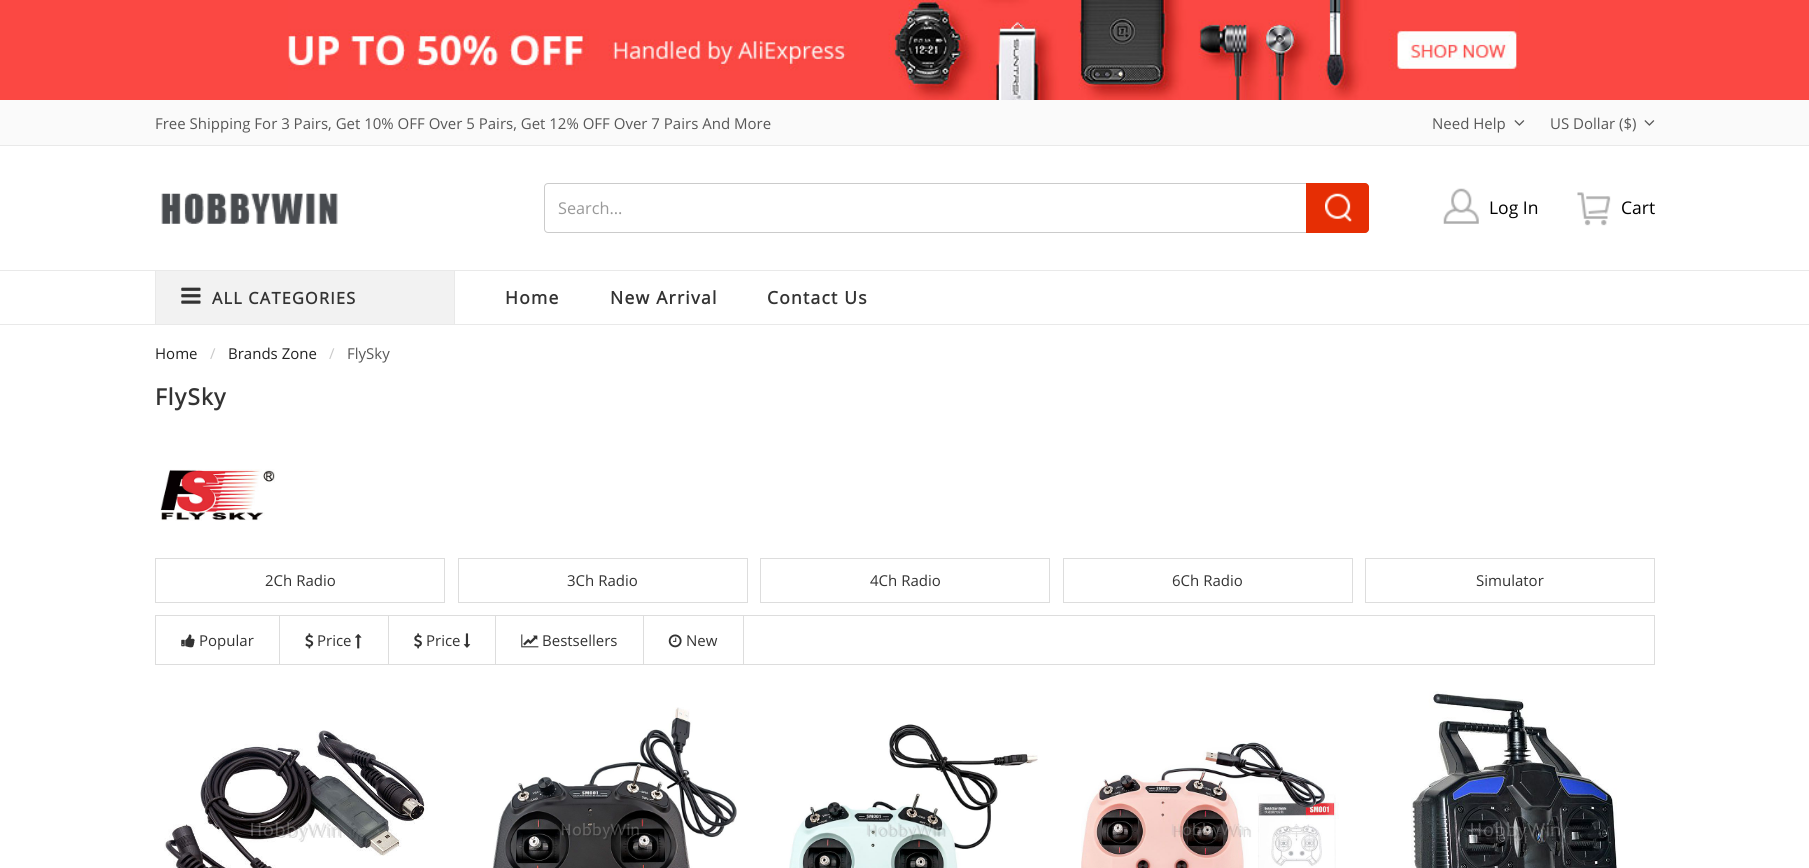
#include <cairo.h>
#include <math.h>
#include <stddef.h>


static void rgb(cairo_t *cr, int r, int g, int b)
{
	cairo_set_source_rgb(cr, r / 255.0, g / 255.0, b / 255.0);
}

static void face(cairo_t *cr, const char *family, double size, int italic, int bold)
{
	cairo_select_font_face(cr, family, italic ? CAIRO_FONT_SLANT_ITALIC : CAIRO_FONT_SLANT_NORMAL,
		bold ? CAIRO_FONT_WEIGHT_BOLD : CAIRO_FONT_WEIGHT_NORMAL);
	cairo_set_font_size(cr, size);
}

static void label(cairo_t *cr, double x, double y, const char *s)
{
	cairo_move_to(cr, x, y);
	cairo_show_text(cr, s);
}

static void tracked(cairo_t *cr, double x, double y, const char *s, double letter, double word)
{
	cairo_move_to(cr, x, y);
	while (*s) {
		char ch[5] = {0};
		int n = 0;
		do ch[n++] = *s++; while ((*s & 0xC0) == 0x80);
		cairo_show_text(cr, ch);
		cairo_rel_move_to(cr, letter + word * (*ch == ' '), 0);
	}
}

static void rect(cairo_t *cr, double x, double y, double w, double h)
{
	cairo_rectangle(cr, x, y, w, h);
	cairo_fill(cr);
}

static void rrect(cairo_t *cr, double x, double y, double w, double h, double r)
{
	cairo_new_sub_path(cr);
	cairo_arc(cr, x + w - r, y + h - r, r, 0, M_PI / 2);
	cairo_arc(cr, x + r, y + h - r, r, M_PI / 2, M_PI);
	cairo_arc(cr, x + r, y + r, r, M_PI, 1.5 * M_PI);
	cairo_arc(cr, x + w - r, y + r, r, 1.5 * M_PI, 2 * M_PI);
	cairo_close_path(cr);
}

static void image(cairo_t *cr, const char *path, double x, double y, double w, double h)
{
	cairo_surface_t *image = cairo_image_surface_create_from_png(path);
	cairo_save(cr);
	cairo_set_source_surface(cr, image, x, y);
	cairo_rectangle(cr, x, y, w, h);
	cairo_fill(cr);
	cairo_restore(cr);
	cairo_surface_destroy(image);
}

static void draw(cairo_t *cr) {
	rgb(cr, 255, 255, 255);
	cairo_paint(cr);
	rgb(cr, 251, 72, 67);
	rect(cr, 0, 0, 1809, 100);
	image(cr, "image0.png", 288, 0, 1231, 100);
	rgb(cr, 250, 250, 250);
	rect(cr, 0, 100, 1809, 45);
	rgb(cr, 233, 233, 233);
	rect(cr, 0, 145, 1809, 1);
	face(cr, "Open Sans", 15, 0, 0);
	rgb(cr, 87, 87, 87);
	label(cr, 155, 129, "Free Shipping For 3 Pairs, Get 10% OFF Over 5 Pairs, Get 12% OFF Over 7 Pairs And More");
	label(cr, 1432, 129, "Need Help");
	image(cr, "image1.png", 1514, 120, 11, 6);
	label(cr, 1550, 129, "US Dollar ($)");
	image(cr, "image1.png", 1644, 120, 11, 6);
	image(cr, "image2.png", 161, 193, 177, 31);
	rrect(cr, 544.5, 183.5, 824, 49, 3.5);
	rgb(cr, 203, 203, 203);
	cairo_set_line_width(cr, 1);
	cairo_stroke(cr);
	face(cr, "Open Sans", 16.25, 0, 0);
	rgb(cr, 153, 153, 153);
	label(cr, 558, 214, "Search...");
	rgb(cr, 230, 46, 4);
	cairo_new_path(cr);
	cairo_move_to(cr, 1306, 183);
	cairo_line_to(cr, 1365, 183);
	cairo_curve_to(cr, 1367, 183, 1369, 185, 1369, 187);
	cairo_line_to(cr, 1369, 229);
	cairo_curve_to(cr, 1369, 231, 1367, 233, 1365, 233);
	cairo_line_to(cr, 1306, 233);
	cairo_close_path(cr);
	cairo_fill(cr);
	image(cr, "image3.png", 1325, 193, 27, 29);
	image(cr, "image4.png", 1443, 188, 36, 36);
	face(cr, "Open Sans", 17.5, 0, 0);
	rgb(cr, 0, 0, 0);
	label(cr, 1489, 214, "Log In");
	image(cr, "image5.png", 1577, 192, 34, 34);
	label(cr, 1621, 214, "Cart");
	rgb(cr, 233, 233, 233);
	rect(cr, 0, 270, 1809, 1);
	rect(cr, 0, 324, 1809, 1);
	rgb(cr, 242, 242, 242);
	rect(cr, 156, 271, 298, 53);
	rgb(cr, 233, 233, 233);
	rect(cr, 454, 271, 1, 53);
	rect(cr, 155, 271, 1, 53);
	image(cr, "image6.png", 181, 287, 20, 17);
	face(cr, "Open Sans", 16.25, 0, 1);
	rgb(cr, 51, 51, 51);
	tracked(cr, 212, 304, "ALL CATEGORIES", 1.25, 0);
	face(cr, "Open Sans", 17.5, 0, 1);
	tracked(cr, 505, 304, "Home", 1.25, 0);
	tracked(cr, 610, 304, "New Arrival", 1.25, 0);
	tracked(cr, 767, 304, "Contact Us", 1.25, 0);
	face(cr, "Open Sans", 15, 0, 0);
	rgb(cr, 34, 34, 34);
	label(cr, 155, 359, "Home");
	rgb(cr, 202, 202, 202);
	label(cr, 210, 359, "/");
	rgb(cr, 34, 34, 34);
	label(cr, 228, 359, "Brands Zone");
	rgb(cr, 202, 202, 202);
	label(cr, 329, 359, "/");
	rgb(cr, 87, 87, 87);
	label(cr, 347, 359, "FlySky");
	face(cr, "Open Sans", 22.5, 0, 1);
	rgb(cr, 51, 51, 51);
	tracked(cr, 155, 405, "FlySky", 1.25, 0);
	image(cr, "image7.png", 160, 469, 115, 52);
	cairo_rectangle(cr, 155.5, 558.5, 289, 44);
	rgb(cr, 221, 221, 221);
	cairo_stroke(cr);
	face(cr, "Open Sans", 15, 0, 0);
	rgb(cr, 51, 51, 51);
	label(cr, 265, 586, "2Ch Radio");
	cairo_rectangle(cr, 458.5, 558.5, 289, 44);
	rgb(cr, 221, 221, 221);
	cairo_stroke(cr);
	rgb(cr, 51, 51, 51);
	label(cr, 567, 586, "3Ch Radio");
	cairo_rectangle(cr, 760.5, 558.5, 289, 44);
	rgb(cr, 221, 221, 221);
	cairo_stroke(cr);
	rgb(cr, 51, 51, 51);
	label(cr, 870, 586, "4Ch Radio");
	cairo_rectangle(cr, 1063.5, 558.5, 289, 44);
	rgb(cr, 221, 221, 221);
	cairo_stroke(cr);
	rgb(cr, 51, 51, 51);
	label(cr, 1172, 586, "6Ch Radio");
	cairo_rectangle(cr, 1365.5, 558.5, 289, 44);
	rgb(cr, 221, 221, 221);
	cairo_stroke(cr);
	rgb(cr, 51, 51, 51);
	label(cr, 1476, 586, "Simulator");
	cairo_rectangle(cr, 155.5, 615.5, 1499, 49);
	rgb(cr, 221, 221, 221);
	cairo_stroke(cr);
	rect(cr, 279, 616, 1, 48);
	image(cr, "image8.png", 181, 634, 14, 14);
	rgb(cr, 51, 51, 51);
	label(cr, 199, 646, "Popular");
	rgb(cr, 221, 221, 221);
	rect(cr, 388, 616, 1, 48);
	image(cr, "image9.png", 305, 633, 9, 16);
	rgb(cr, 51, 51, 51);
	label(cr, 317, 646, "Price");
	image(cr, "image10.png", 355, 634, 7, 15);
	rgb(cr, 221, 221, 221);
	rect(cr, 495, 616, 1, 48);
	image(cr, "image11.png", 414, 633, 8, 16);
	rgb(cr, 51, 51, 51);
	label(cr, 426, 646, "Price");
	image(cr, "image12.png", 463, 633, 8, 15);
	rgb(cr, 221, 221, 221);
	rect(cr, 643, 616, 1, 48);
	image(cr, "image13.png", 521, 634, 18, 14);
	rgb(cr, 51, 51, 51);
	label(cr, 542, 646, "Bestsellers");
	rgb(cr, 221, 221, 221);
	rect(cr, 743, 616, 1, 48);
	image(cr, "image14.png", 668, 634, 14, 14);
	rgb(cr, 51, 51, 51);
	label(cr, 686, 646, "New");
	image(cr, "image15.png", 164, 730, 264, 138);
	image(cr, "image16.png", 492, 707, 245, 161);
	image(cr, "image17.png", 789, 724, 249, 144);
	image(cr, "image18.png", 1081, 741, 258, 127);
	image(cr, "image19.png", 1411, 691, 206, 177);
}

int main(void) {
	cairo_surface_t *surface = cairo_image_surface_create(CAIRO_FORMAT_RGB24, 1809, 868);
	cairo_t *cr = cairo_create(surface);
	cairo_font_options_t *options = cairo_font_options_create();
	cairo_font_options_set_hint_metrics(options, CAIRO_HINT_METRICS_OFF);
	cairo_font_options_set_hint_style(options, CAIRO_HINT_STYLE_NONE);
	cairo_set_font_options(cr, options);
	cairo_set_miter_limit(cr, 4);
	draw(cr);
	cairo_surface_write_to_png(surface, "render.png");
	cairo_font_options_destroy(options);
	cairo_destroy(cr);
	cairo_surface_destroy(surface);
	return 0;
}
